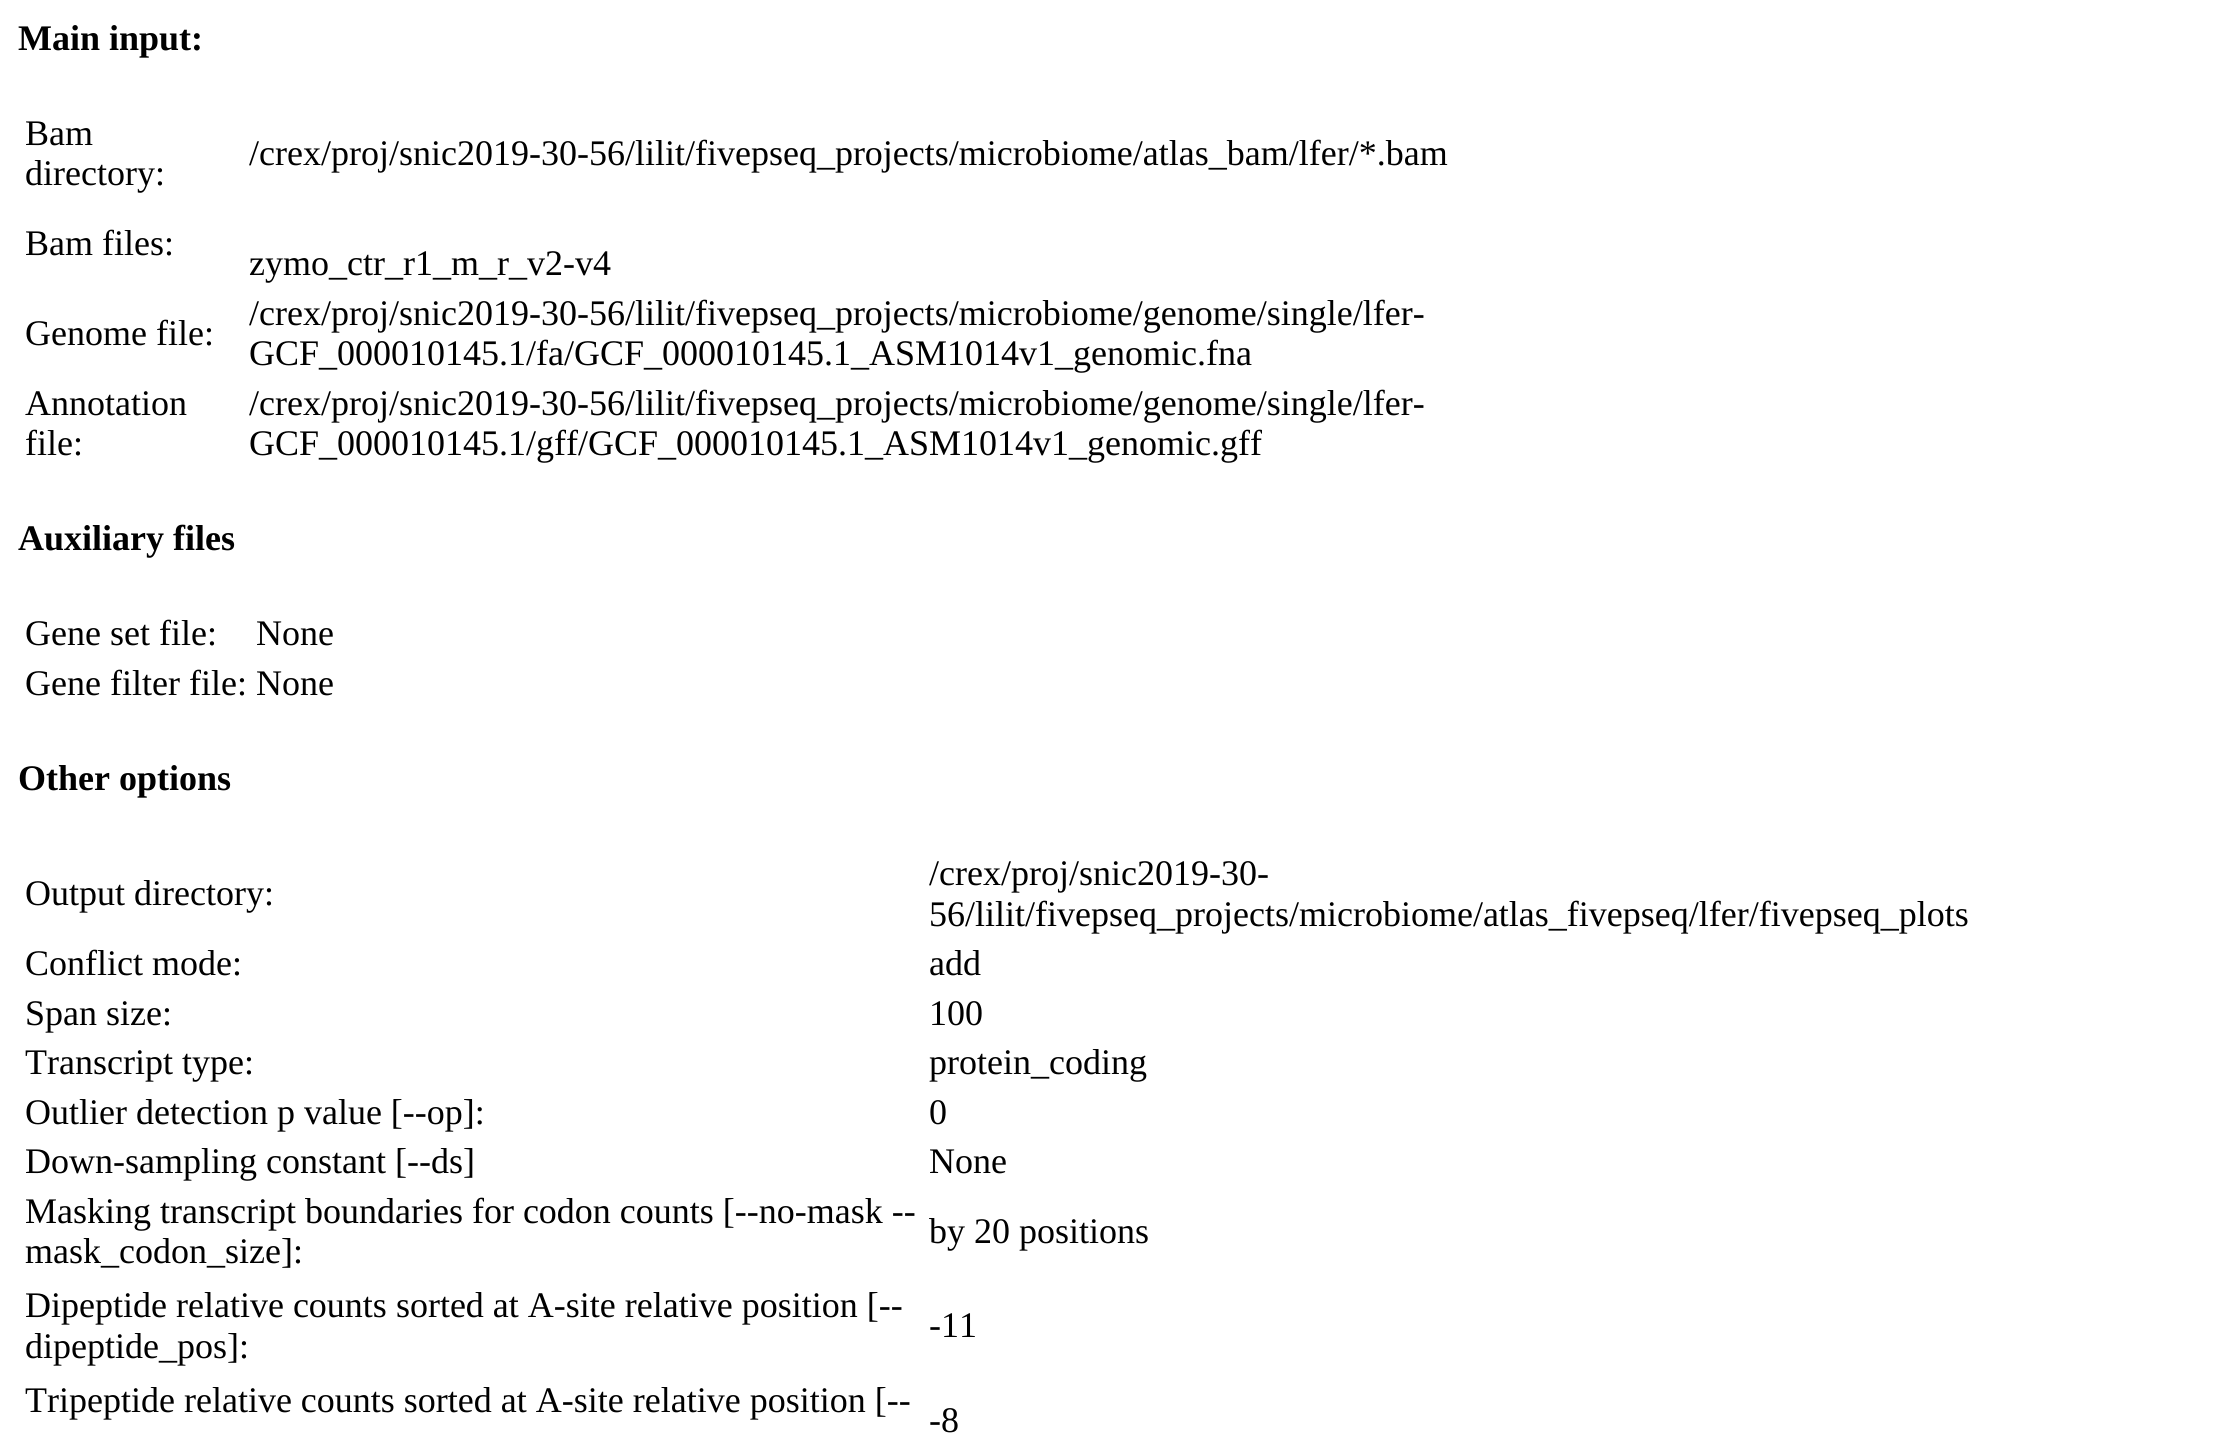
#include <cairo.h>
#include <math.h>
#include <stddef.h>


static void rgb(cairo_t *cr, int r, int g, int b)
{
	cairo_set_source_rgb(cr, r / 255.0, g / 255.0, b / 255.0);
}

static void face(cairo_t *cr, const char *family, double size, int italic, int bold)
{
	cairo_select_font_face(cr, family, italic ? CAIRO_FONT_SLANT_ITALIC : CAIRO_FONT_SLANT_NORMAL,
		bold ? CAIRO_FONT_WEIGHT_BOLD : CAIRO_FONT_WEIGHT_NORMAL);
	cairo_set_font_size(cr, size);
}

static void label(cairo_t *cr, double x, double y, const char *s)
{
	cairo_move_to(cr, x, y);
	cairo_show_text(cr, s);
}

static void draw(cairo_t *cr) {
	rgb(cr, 255, 255, 255);
	cairo_paint(cr);
	face(cr, "Liberation Serif", 36, 0, 1);
	rgb(cr, 0, 0, 0);
	label(cr, 18, 50, "Main input:");
	face(cr, "Liberation Serif", 36, 0, 0);
	label(cr, 25, 145, "Bam");
	label(cr, 25, 185, "directory:");
	label(cr, 249, 165, "/crex/proj/snic2019-30-56/lilit/fivepseq_projects/microbiome/atlas_bam/lfer/*.bam");
	label(cr, 25, 255, "Bam files:");
	label(cr, 249, 275, "zymo_ctr_r1_m_r_v2-v4");
	label(cr, 25, 345, "Genome file:");
	label(cr, 249, 325, "/crex/proj/snic2019-30-56/lilit/fivepseq_projects/microbiome/genome/single/lfer-");
	label(cr, 249, 365, "GCF_000010145.1/fa/GCF_000010145.1_ASM1014v1_genomic.fna");
	label(cr, 25, 415, "Annotation");
	label(cr, 25, 455, "file:");
	label(cr, 249, 415, "/crex/proj/snic2019-30-56/lilit/fivepseq_projects/microbiome/genome/single/lfer-");
	label(cr, 249, 455, "GCF_000010145.1/gff/GCF_000010145.1_ASM1014v1_genomic.gff");
	face(cr, "Liberation Serif", 36, 0, 1);
	label(cr, 18, 550, "Auxiliary files");
	face(cr, "Liberation Serif", 36, 0, 0);
	label(cr, 25, 645, "Gene set file:");
	label(cr, 256, 645, "None");
	label(cr, 25, 695, "Gene filter file: None");
	face(cr, "Liberation Serif", 36, 0, 1);
	label(cr, 18, 790, "Other options");
	face(cr, "Liberation Serif", 36, 0, 0);
	label(cr, 25, 905, "Output directory:");
	label(cr, 929, 885, "/crex/proj/snic2019-30-");
	label(cr, 929, 926, "56/lilit/fivepseq_projects/microbiome/atlas_fivepseq/lfer/fivepseq_plots");
	label(cr, 25, 975, "Conflict mode:");
	label(cr, 929, 975, "add");
	label(cr, 25, 1025, "Span size:");
	label(cr, 929, 1025, "100");
	label(cr, 25, 1074, "Transcript type:");
	label(cr, 929, 1074, "protein_coding");
	label(cr, 25, 1124, "Outlier detection p value [--op]:");
	label(cr, 929, 1124, "0");
	label(cr, 25, 1173, "Down-sampling constant [--ds]");
	label(cr, 929, 1173, "None");
	label(cr, 25, 1223, "Masking transcript boundaries for codon counts [--no-mask --");
	label(cr, 25, 1263, "mask_codon_size]:");
	label(cr, 929, 1243, "by 20 positions");
	label(cr, 25, 1317, "Dipeptide relative counts sorted at A-site relative position [--");
	label(cr, 25, 1358, "dipeptide_pos]:");
	label(cr, 929, 1337, "-11");
	label(cr, 25, 1412, "Tripeptide relative counts sorted at A-site relative position [--");
	label(cr, 929, 1432, "-8");
}

int main(void) {
	cairo_surface_t *surface = cairo_image_surface_create(CAIRO_FORMAT_RGB24, 2229, 1446);
	cairo_t *cr = cairo_create(surface);
	cairo_font_options_t *options = cairo_font_options_create();
	cairo_font_options_set_hint_metrics(options, CAIRO_HINT_METRICS_OFF);
	cairo_font_options_set_hint_style(options, CAIRO_HINT_STYLE_NONE);
	cairo_set_font_options(cr, options);
	cairo_set_miter_limit(cr, 4);
	draw(cr);
	cairo_surface_write_to_png(surface, "render.png");
	cairo_font_options_destroy(options);
	cairo_destroy(cr);
	cairo_surface_destroy(surface);
	return 0;
}
